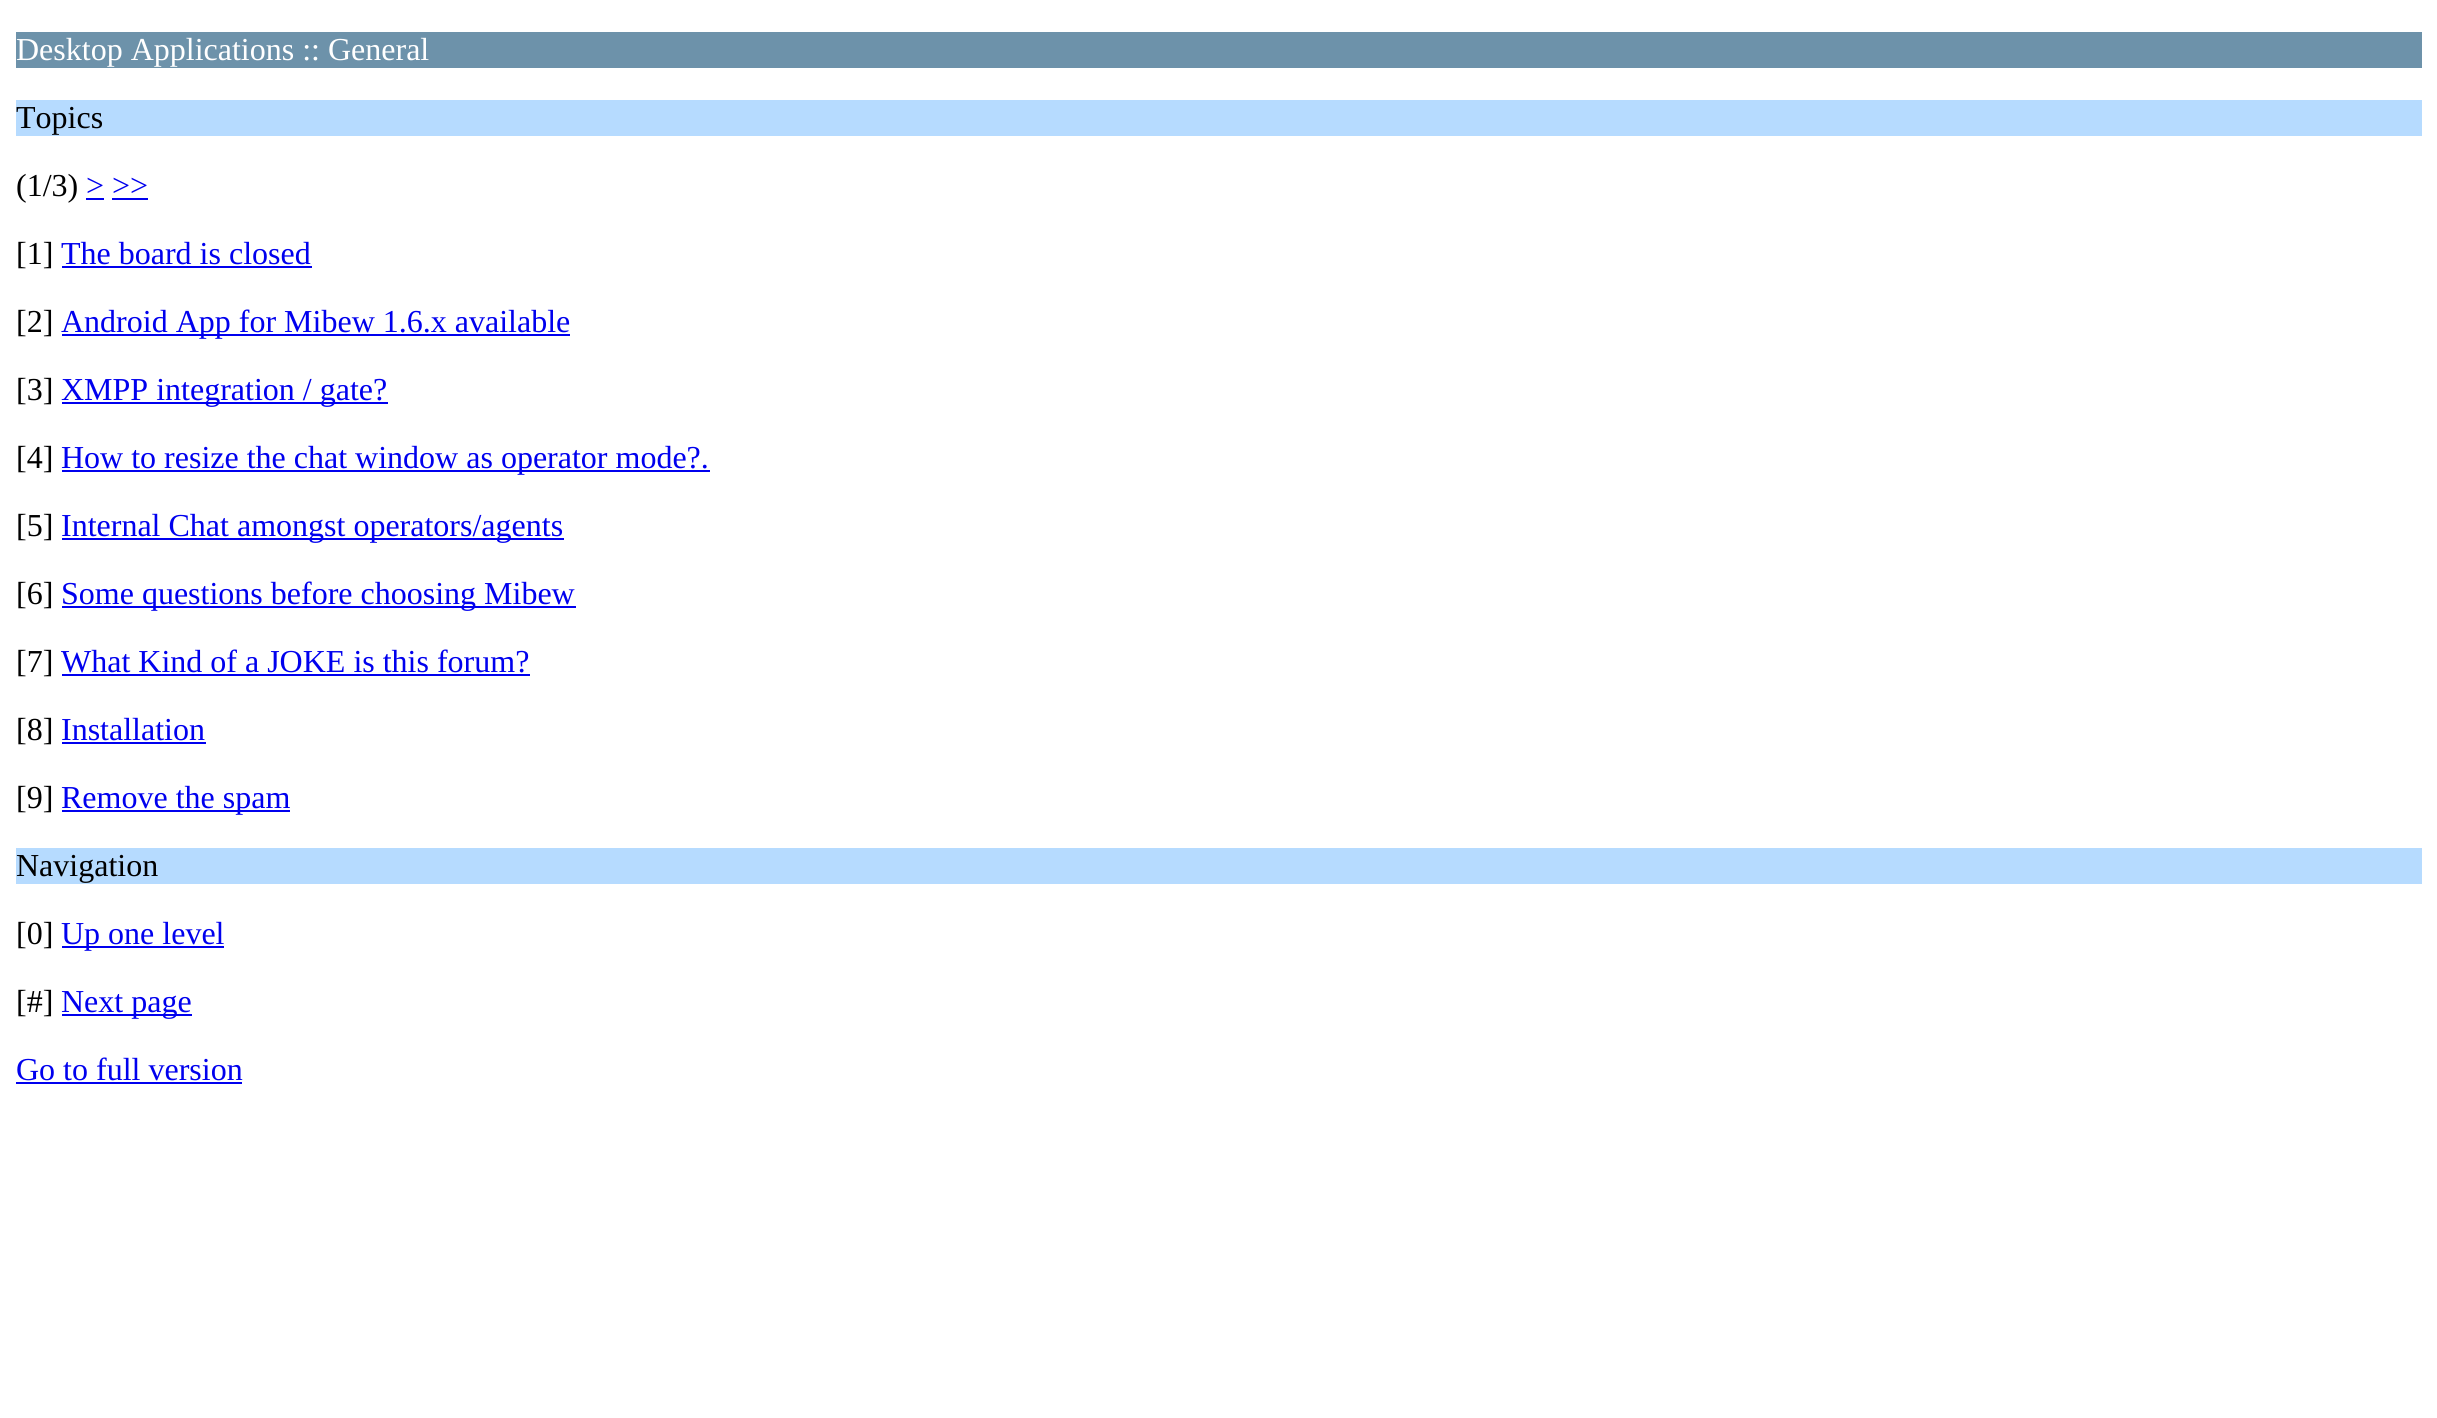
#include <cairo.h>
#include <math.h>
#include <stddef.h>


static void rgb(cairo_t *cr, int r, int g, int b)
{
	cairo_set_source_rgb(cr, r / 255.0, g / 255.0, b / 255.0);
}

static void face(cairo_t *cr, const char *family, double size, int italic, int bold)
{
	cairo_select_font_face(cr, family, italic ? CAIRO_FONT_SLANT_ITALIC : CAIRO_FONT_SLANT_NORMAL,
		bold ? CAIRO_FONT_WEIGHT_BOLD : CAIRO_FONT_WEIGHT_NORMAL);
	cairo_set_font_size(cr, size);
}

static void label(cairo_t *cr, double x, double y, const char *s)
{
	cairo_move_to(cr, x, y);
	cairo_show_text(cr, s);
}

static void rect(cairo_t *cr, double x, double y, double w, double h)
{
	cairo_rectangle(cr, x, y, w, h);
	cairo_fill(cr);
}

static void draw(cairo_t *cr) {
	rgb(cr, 255, 255, 255);
	cairo_paint(cr);
	rgb(cr, 109, 146, 170);
	rect(cr, 16, 32, 2406, 36);
	face(cr, "Liberation Serif", 32, 0, 0);
	rgb(cr, 255, 255, 255);
	label(cr, 16, 60, "Desktop Applications :: General");
	rgb(cr, 182, 219, 255);
	rect(cr, 16, 100, 2406, 36);
	rgb(cr, 0, 0, 0);
	label(cr, 16, 128, "Topics");
	label(cr, 16, 196, "(1/3)");
	rgb(cr, 0, 0, 238);
	label(cr, 86, 196, "> >>");
	rect(cr, 86, 198, 18, 2);
	rect(cr, 112, 198, 36, 2);
	rgb(cr, 0, 0, 0);
	label(cr, 16, 264, "[1]");
	rgb(cr, 0, 0, 238);
	label(cr, 61, 264, "The board is closed");
	rect(cr, 62, 266, 250, 2);
	rgb(cr, 0, 0, 0);
	label(cr, 16, 332, "[2]");
	rgb(cr, 0, 0, 238);
	rect(cr, 62, 334, 508, 2);
	label(cr, 61, 332, "Android App for Mibew 1.6.x available");
	rgb(cr, 0, 0, 0);
	label(cr, 16, 400, "[3]");
	rgb(cr, 0, 0, 238);
	rect(cr, 62, 402, 326, 2);
	label(cr, 61, 400, "XMPP integration / gate?");
	rgb(cr, 0, 0, 0);
	label(cr, 16, 468, "[4]");
	rgb(cr, 0, 0, 238);
	rect(cr, 62, 470, 648, 2);
	label(cr, 61, 468, "How to resize the chat window as operator mode?.");
	rgb(cr, 0, 0, 0);
	label(cr, 16, 536, "[5]");
	rgb(cr, 0, 0, 238);
	rect(cr, 62, 538, 502, 2);
	label(cr, 61, 536, "Internal Chat amongst operators/agents");
	rgb(cr, 0, 0, 0);
	label(cr, 16, 604, "[6]");
	rgb(cr, 0, 0, 238);
	rect(cr, 62, 606, 514, 2);
	label(cr, 61, 604, "Some questions before choosing Mibew");
	rgb(cr, 0, 0, 0);
	label(cr, 16, 672, "[7]");
	rgb(cr, 0, 0, 238);
	label(cr, 61, 672, "What Kind of a JOKE is this forum?");
	rect(cr, 62, 674, 468, 2);
	rgb(cr, 0, 0, 0);
	label(cr, 16, 740, "[8]");
	rgb(cr, 0, 0, 238);
	label(cr, 61, 740, "Installation");
	rect(cr, 62, 742, 144, 2);
	rgb(cr, 0, 0, 0);
	label(cr, 16, 808, "[9]");
	rgb(cr, 0, 0, 238);
	rect(cr, 62, 810, 228, 2);
	label(cr, 61, 808, "Remove the spam");
	rgb(cr, 182, 219, 255);
	rect(cr, 16, 848, 2406, 36);
	rgb(cr, 0, 0, 0);
	label(cr, 16, 876, "Navigation");
	label(cr, 16, 944, "[0]");
	rgb(cr, 0, 0, 238);
	rect(cr, 62, 946, 162, 2);
	label(cr, 61, 944, "Up one level");
	rgb(cr, 0, 0, 0);
	label(cr, 16, 1012, "[#]");
	rgb(cr, 0, 0, 238);
	rect(cr, 62, 1014, 130, 2);
	label(cr, 61, 1012, "Next page");
	label(cr, 16, 1080, "Go to full version");
	rect(cr, 16, 1082, 226, 2);
}

int main(void) {
	cairo_surface_t *surface = cairo_image_surface_create(CAIRO_FORMAT_RGB24, 2437, 1418);
	cairo_t *cr = cairo_create(surface);
	cairo_font_options_t *options = cairo_font_options_create();
	cairo_font_options_set_hint_metrics(options, CAIRO_HINT_METRICS_OFF);
	cairo_font_options_set_hint_style(options, CAIRO_HINT_STYLE_NONE);
	cairo_set_font_options(cr, options);
	cairo_set_miter_limit(cr, 4);
	draw(cr);
	cairo_surface_write_to_png(surface, "render.png");
	cairo_font_options_destroy(options);
	cairo_destroy(cr);
	cairo_surface_destroy(surface);
	return 0;
}
